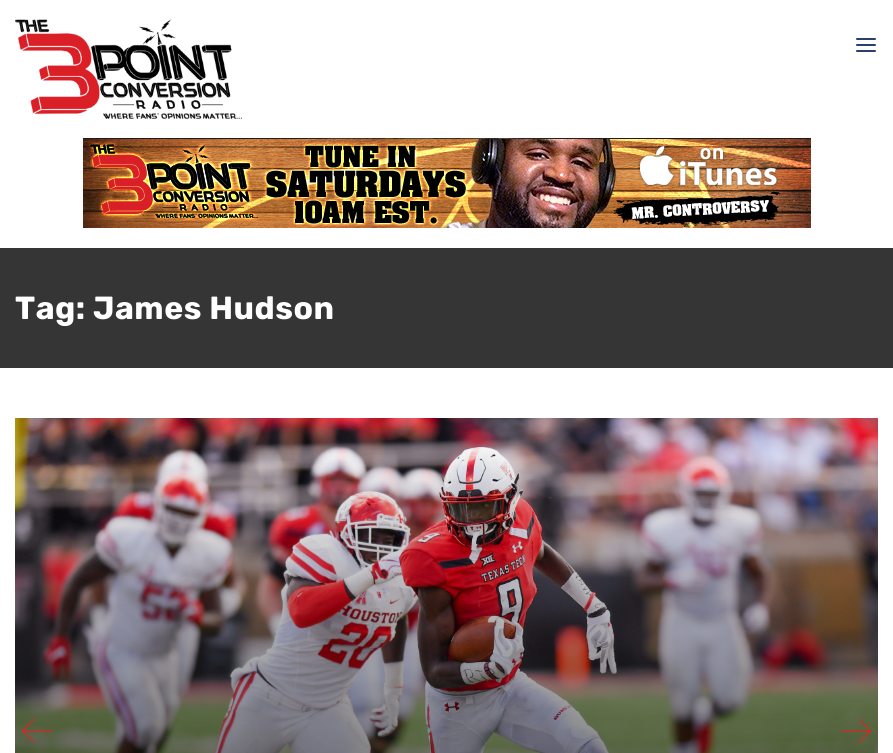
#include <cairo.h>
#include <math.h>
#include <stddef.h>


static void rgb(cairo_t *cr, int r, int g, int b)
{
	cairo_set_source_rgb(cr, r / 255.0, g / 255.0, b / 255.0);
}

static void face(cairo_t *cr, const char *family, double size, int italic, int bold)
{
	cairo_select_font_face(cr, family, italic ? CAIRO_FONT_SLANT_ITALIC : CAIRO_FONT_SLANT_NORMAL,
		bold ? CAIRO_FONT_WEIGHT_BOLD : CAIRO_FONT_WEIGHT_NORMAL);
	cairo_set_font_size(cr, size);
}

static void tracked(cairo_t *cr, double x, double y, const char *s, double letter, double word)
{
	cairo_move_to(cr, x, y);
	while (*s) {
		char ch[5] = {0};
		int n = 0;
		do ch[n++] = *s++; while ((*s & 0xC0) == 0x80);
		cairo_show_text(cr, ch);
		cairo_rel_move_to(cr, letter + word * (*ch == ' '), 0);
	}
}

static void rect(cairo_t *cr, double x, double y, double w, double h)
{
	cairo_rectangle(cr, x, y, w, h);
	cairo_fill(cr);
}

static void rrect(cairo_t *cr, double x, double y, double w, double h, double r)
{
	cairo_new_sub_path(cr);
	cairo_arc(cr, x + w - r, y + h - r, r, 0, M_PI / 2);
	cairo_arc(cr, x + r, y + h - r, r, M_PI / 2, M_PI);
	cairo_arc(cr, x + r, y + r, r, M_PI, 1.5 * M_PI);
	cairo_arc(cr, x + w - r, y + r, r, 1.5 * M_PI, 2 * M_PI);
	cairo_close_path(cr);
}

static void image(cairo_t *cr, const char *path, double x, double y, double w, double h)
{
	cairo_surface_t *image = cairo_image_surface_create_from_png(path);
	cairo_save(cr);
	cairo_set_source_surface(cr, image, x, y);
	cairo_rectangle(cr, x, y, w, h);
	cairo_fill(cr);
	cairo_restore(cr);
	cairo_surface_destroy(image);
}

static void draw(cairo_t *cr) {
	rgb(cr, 255, 255, 255);
	cairo_paint(cr);
	image(cr, "image0.png", 15, 19, 227, 100);
	image(cr, "image1.png", 83, 138, 728, 90);
	rgb(cr, 40, 64, 109);
	rrect(cr, 856, 38, 20, 2, 1);
	cairo_fill(cr);
	rrect(cr, 856, 44, 20, 2, 1);
	cairo_fill(cr);
	rrect(cr, 856, 50, 20, 2, 1);
	cairo_fill(cr);
	rgb(cr, 53, 53, 53);
	rect(cr, 0, 248, 893, 120);
	face(cr, "Rubik", 32, 0, 1);
	rgb(cr, 255, 255, 255);
	tracked(cr, 15, 319, "Tag: James Hudson", 0.5, 0);
	image(cr, "image2.png", 15, 418, 863, 335);
	image(cr, "image3.png", 22, 718, 30, 25);
	image(cr, "image4.png", 841, 718, 30, 25);
}

int main(void) {
	cairo_surface_t *surface = cairo_image_surface_create(CAIRO_FORMAT_RGB24, 893, 753);
	cairo_t *cr = cairo_create(surface);
	cairo_font_options_t *options = cairo_font_options_create();
	cairo_font_options_set_hint_metrics(options, CAIRO_HINT_METRICS_OFF);
	cairo_font_options_set_hint_style(options, CAIRO_HINT_STYLE_NONE);
	cairo_set_font_options(cr, options);
	cairo_set_miter_limit(cr, 4);
	draw(cr);
	cairo_surface_write_to_png(surface, "render.png");
	cairo_font_options_destroy(options);
	cairo_destroy(cr);
	cairo_surface_destroy(surface);
	return 0;
}
